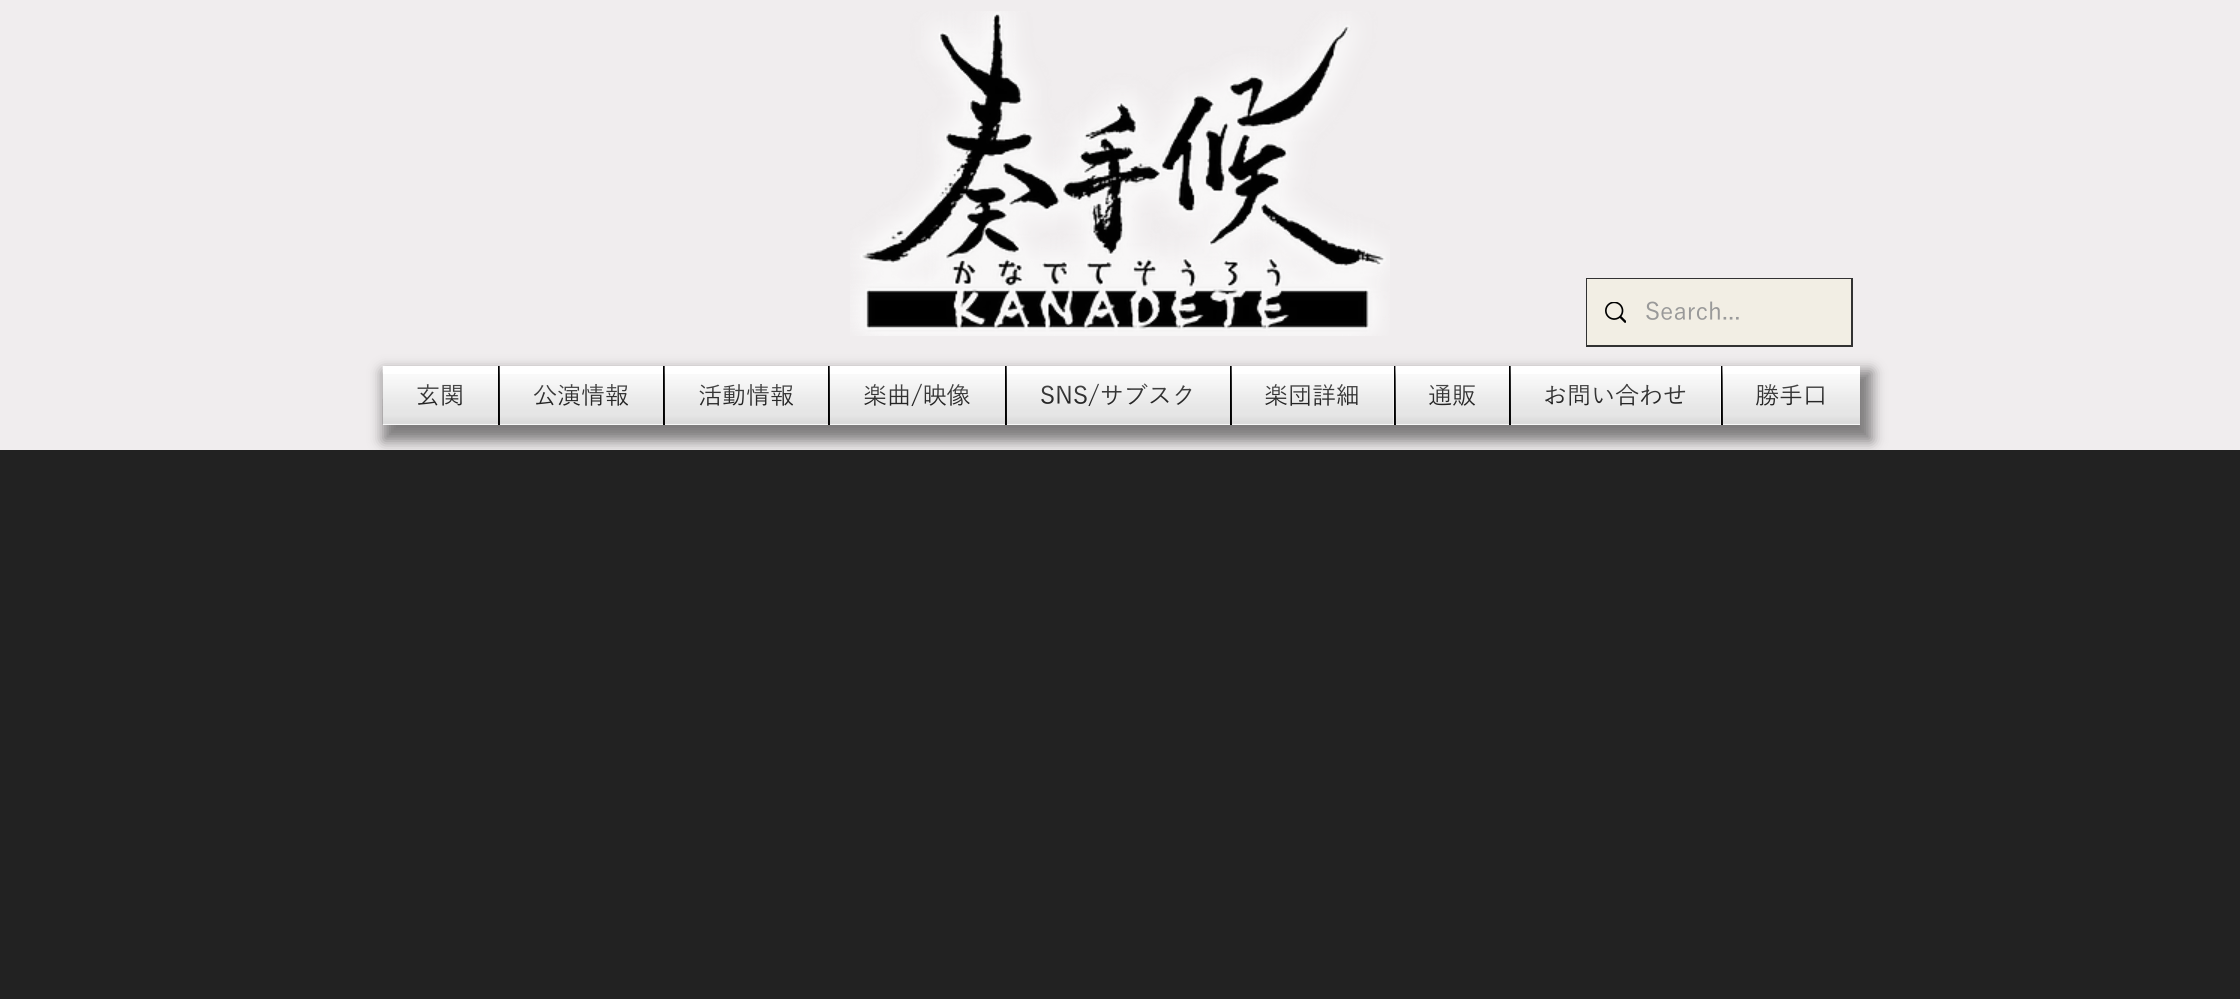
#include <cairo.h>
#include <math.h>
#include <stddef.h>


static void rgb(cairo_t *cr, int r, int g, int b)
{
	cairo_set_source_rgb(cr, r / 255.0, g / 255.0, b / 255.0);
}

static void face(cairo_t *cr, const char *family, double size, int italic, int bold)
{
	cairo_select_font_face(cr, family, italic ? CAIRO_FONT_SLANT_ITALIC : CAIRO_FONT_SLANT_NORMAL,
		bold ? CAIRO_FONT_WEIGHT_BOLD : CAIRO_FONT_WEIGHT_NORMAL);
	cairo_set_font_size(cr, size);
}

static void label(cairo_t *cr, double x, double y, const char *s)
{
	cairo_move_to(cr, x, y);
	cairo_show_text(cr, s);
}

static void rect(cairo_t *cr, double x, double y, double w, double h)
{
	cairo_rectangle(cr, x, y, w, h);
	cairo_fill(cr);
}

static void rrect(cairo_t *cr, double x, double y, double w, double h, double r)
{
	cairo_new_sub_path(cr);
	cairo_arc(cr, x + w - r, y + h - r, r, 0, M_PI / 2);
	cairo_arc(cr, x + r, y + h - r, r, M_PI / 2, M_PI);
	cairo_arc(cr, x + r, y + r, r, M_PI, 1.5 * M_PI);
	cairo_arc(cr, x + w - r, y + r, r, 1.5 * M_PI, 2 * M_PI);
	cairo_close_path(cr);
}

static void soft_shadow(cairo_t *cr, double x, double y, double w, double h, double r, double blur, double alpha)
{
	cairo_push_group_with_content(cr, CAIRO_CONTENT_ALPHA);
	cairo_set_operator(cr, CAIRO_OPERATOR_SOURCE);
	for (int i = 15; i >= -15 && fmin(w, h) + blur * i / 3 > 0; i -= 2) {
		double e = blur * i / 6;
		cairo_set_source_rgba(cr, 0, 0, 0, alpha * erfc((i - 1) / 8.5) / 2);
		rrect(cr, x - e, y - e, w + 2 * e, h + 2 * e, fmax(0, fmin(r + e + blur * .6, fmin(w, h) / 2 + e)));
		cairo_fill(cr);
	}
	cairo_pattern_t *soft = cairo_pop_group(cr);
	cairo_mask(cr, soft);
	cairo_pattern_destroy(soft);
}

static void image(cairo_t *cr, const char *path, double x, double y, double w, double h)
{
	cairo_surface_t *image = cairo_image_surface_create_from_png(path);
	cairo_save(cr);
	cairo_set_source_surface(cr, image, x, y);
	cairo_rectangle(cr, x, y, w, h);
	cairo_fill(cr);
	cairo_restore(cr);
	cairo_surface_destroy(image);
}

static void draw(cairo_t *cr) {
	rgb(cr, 240, 237, 238);
	cairo_paint(cr);
	image(cr, "image0.png", 850, 11, 540, 325);
	cairo_rectangle(cr, 1587, 279, 265, 67);
	rgb(cr, 50, 50, 50);
	cairo_stroke(cr);
	rgb(cr, 242, 238, 228);
	rect(cr, 1587, 279, 264, 66);
	image(cr, "image1.png", 1605, 302, 21, 21);
	face(cr, "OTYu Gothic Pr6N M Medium", 24, 0, 0);
	rgb(cr, 153, 153, 153);
	label(cr, 1645, 320, "Search...");
	rgb(cr, 0, 0, 0);
	soft_shadow(cr, 383, 371, 1489, 70, 0, 7, 0.48);
	image(cr, "image2.png", 382, 366, 1, 33);
	image(cr, "image3.png", 382, 406, 1, 18);
	rgb(cr, 255, 255, 255);
	rect(cr, 383, 366, 115, 59);
	rgb(cr, 0, 0, 0);
	label(cr, 416, 404, "玄関");
	image(cr, "image4.png", 417, 384, 45, 22);
	image(cr, "image5.png", 382, 374, 116, 51);
	rgb(cr, 255, 255, 255);
	rect(cr, 500, 366, 163, 59);
	rgb(cr, 0, 0, 0);
	rect(cr, 498, 366, 2, 59);
	label(cr, 533, 404, "公演情報");
	image(cr, "image6.png", 499, 366, 130, 58);
	image(cr, "image7.png", 500, 374, 163, 51);
	rgb(cr, 255, 255, 255);
	rect(cr, 665, 366, 163, 59);
	rgb(cr, 0, 0, 0);
	rect(cr, 663, 366, 2, 59);
	label(cr, 698, 404, "活動情報");
	image(cr, "image8.png", 664, 366, 130, 58);
	image(cr, "image9.png", 665, 374, 163, 51);
	rgb(cr, 255, 255, 255);
	rect(cr, 830, 366, 175, 59);
	rgb(cr, 0, 0, 0);
	rect(cr, 828, 366, 2, 59);
	label(cr, 863, 404, "楽曲/映像");
	image(cr, "image10.png", 829, 366, 141, 58);
	image(cr, "image11.png", 830, 374, 175, 51);
	rgb(cr, 255, 255, 255);
	rect(cr, 1007, 366, 223, 59);
	rgb(cr, 0, 0, 0);
	rect(cr, 1005, 366, 2, 59);
	label(cr, 1040, 404, "SNS/サブスク");
	image(cr, "image12.png", 1006, 366, 186, 58);
	image(cr, "image13.png", 1007, 374, 223, 51);
	rgb(cr, 255, 255, 255);
	rect(cr, 1232, 366, 162, 59);
	rgb(cr, 0, 0, 0);
	rect(cr, 1230, 366, 2, 59);
	label(cr, 1264, 404, "楽団詳細");
	image(cr, "image14.png", 1231, 366, 127, 58);
	image(cr, "image15.png", 1232, 374, 162, 51);
	rgb(cr, 255, 255, 255);
	rect(cr, 1396, 366, 113, 59);
	rgb(cr, 0, 0, 0);
	rect(cr, 1394, 366, 2, 59);
	label(cr, 1428, 404, "通販");
	image(cr, "image16.png", 1395, 366, 80, 58);
	image(cr, "image17.png", 1396, 374, 113, 51);
	rgb(cr, 255, 255, 255);
	rect(cr, 1511, 366, 210, 59);
	rgb(cr, 0, 0, 0);
	rect(cr, 1509, 366, 2, 59);
	label(cr, 1543, 404, "お問い合わせ");
	image(cr, "image18.png", 1510, 366, 176, 58);
	image(cr, "image19.png", 1511, 374, 210, 51);
	rgb(cr, 255, 255, 255);
	rect(cr, 1723, 366, 137, 59);
	rgb(cr, 0, 0, 0);
	rect(cr, 1721, 366, 2, 59);
	label(cr, 1755, 404, "勝手口");
	image(cr, "image20.png", 1722, 366, 102, 58);
	image(cr, "image21.png", 1723, 374, 137, 51);
	rgb(cr, 34, 34, 34);
	rect(cr, 0, 450, 2240, 549);
}

int main(void) {
	cairo_surface_t *surface = cairo_image_surface_create(CAIRO_FORMAT_RGB24, 2240, 999);
	cairo_t *cr = cairo_create(surface);
	cairo_font_options_t *options = cairo_font_options_create();
	cairo_font_options_set_hint_metrics(options, CAIRO_HINT_METRICS_OFF);
	cairo_font_options_set_hint_style(options, CAIRO_HINT_STYLE_NONE);
	cairo_set_font_options(cr, options);
	cairo_set_miter_limit(cr, 4);
	draw(cr);
	cairo_surface_write_to_png(surface, "render.png");
	cairo_font_options_destroy(options);
	cairo_destroy(cr);
	cairo_surface_destroy(surface);
	return 0;
}
